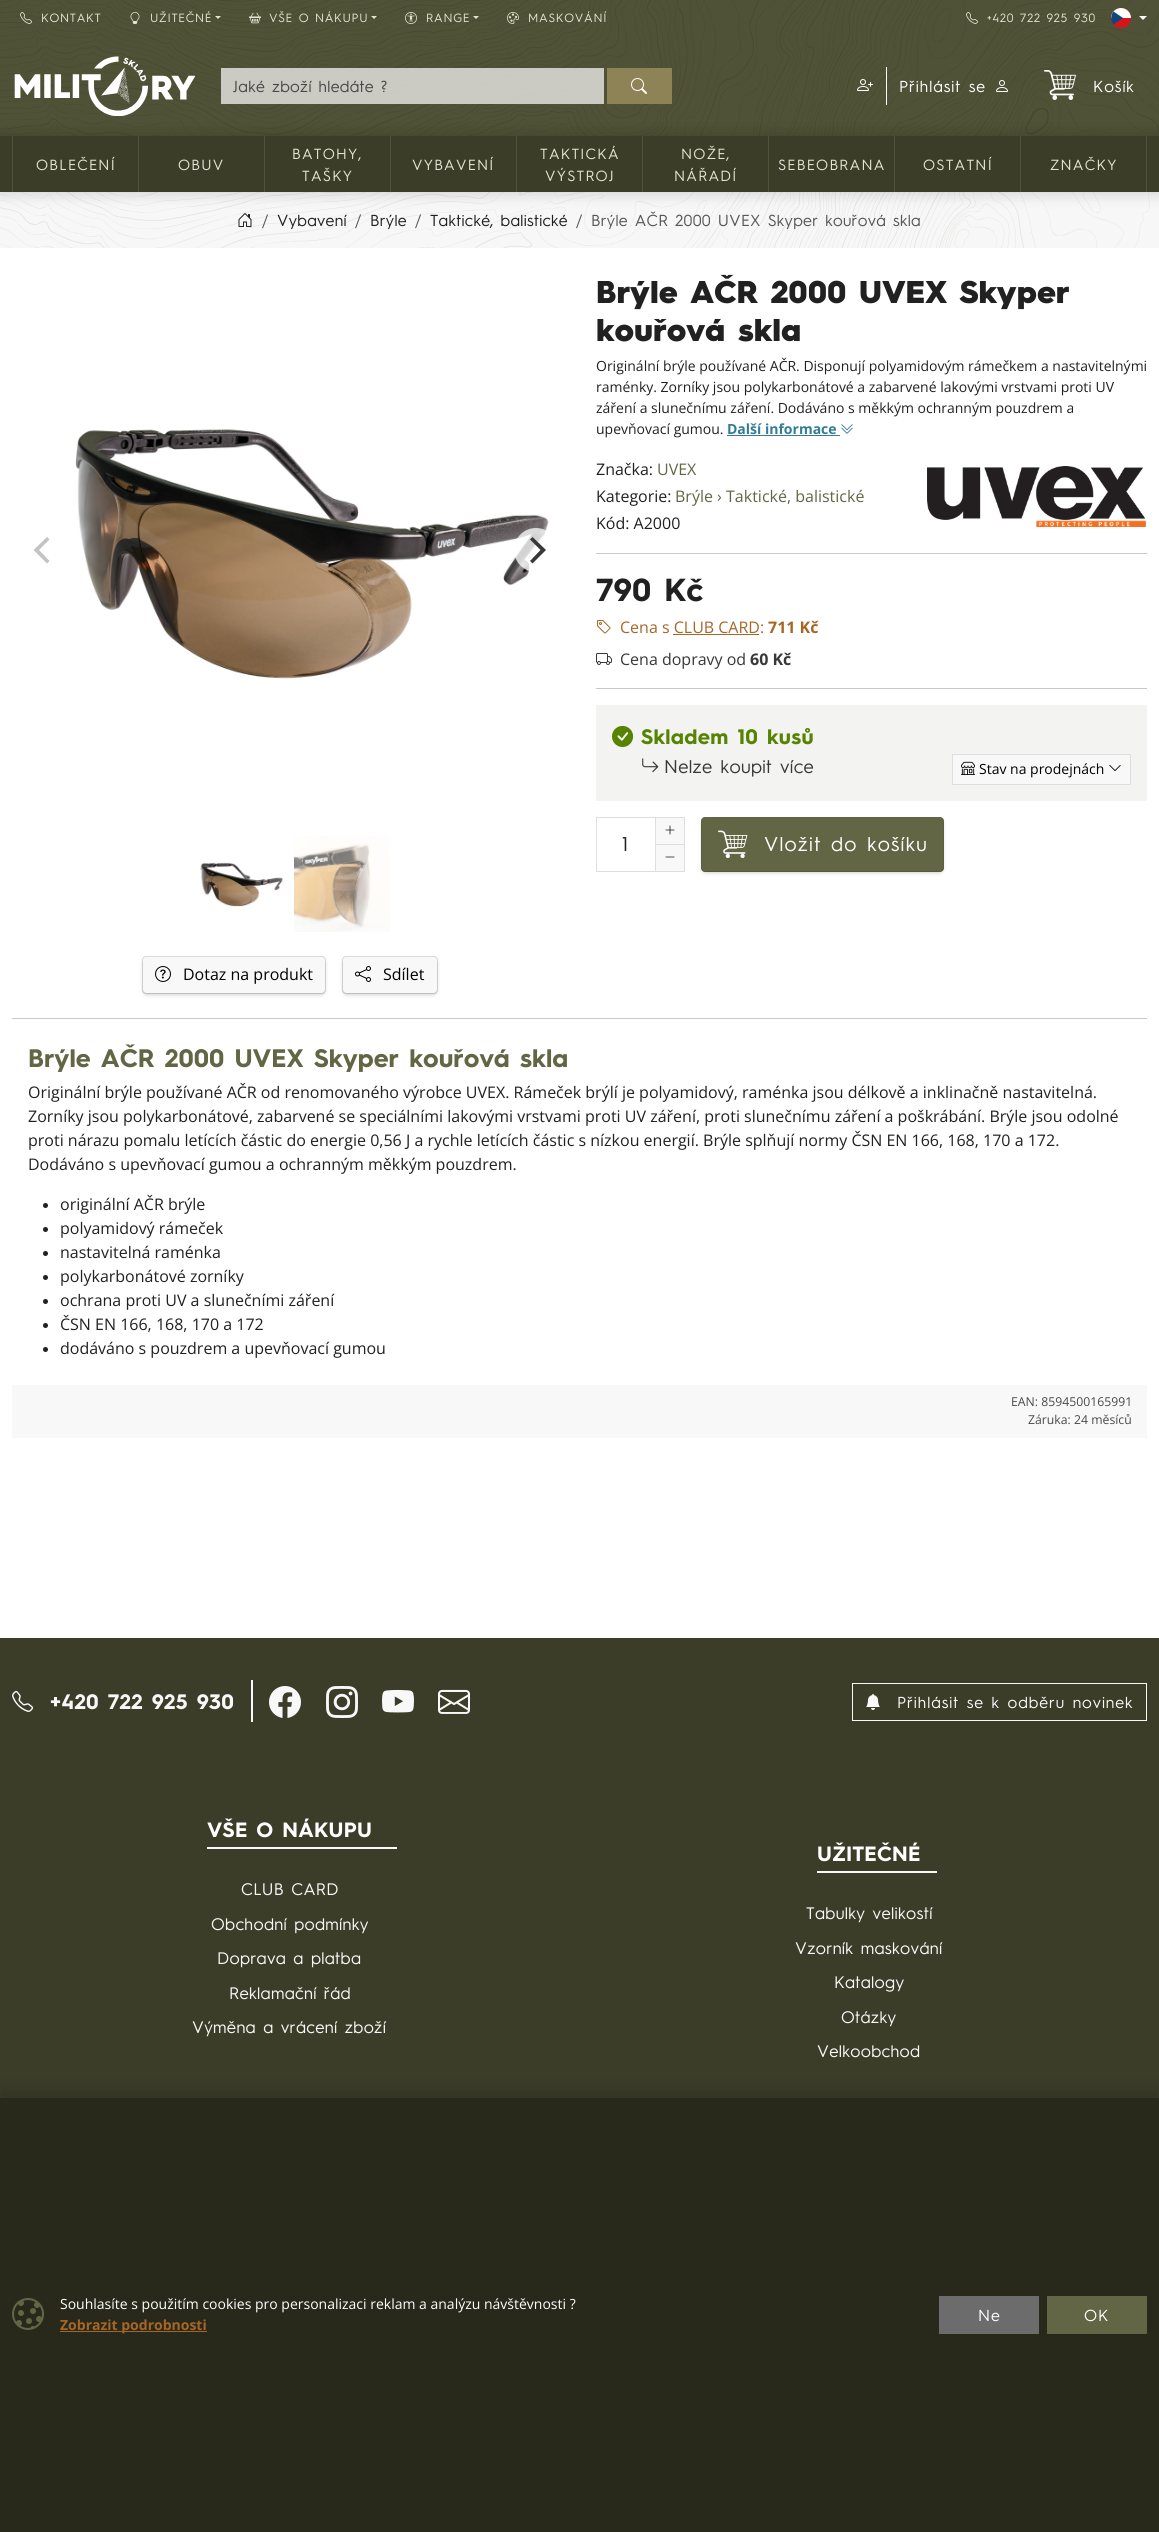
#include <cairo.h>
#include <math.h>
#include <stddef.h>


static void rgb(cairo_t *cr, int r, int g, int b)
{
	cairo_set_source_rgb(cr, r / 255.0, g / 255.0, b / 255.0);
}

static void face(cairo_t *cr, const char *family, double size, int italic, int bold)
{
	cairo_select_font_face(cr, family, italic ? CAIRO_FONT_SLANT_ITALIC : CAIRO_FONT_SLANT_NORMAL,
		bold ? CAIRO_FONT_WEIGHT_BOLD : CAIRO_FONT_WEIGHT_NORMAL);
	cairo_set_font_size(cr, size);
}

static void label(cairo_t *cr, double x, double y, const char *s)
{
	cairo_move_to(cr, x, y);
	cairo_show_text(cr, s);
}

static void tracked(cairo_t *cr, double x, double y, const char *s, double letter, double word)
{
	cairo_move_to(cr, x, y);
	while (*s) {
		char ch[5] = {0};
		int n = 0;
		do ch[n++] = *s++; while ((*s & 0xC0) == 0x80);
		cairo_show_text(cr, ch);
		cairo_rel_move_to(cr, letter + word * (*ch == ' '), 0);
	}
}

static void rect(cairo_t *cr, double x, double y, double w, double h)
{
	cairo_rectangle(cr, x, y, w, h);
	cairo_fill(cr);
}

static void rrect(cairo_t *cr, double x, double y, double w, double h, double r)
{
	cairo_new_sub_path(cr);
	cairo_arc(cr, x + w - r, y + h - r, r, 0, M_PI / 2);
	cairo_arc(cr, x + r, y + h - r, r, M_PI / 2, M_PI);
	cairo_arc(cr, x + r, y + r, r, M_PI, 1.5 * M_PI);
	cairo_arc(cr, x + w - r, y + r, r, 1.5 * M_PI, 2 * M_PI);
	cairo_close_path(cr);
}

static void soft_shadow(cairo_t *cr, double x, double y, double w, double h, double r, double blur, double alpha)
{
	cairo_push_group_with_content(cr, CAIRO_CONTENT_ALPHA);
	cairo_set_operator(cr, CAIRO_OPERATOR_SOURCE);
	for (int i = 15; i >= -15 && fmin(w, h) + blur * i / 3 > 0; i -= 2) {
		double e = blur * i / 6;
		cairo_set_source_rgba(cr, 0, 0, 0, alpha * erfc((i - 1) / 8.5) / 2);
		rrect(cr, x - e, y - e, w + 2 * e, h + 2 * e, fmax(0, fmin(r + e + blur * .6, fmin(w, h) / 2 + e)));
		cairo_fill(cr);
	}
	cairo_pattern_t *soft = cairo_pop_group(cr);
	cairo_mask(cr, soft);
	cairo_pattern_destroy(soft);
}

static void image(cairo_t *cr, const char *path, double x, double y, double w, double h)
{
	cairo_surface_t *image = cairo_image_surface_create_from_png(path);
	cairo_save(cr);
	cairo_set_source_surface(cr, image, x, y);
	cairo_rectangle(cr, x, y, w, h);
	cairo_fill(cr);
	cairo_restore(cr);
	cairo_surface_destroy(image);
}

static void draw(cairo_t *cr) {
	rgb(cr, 255, 255, 255);
	cairo_paint(cr);
	rgb(cr, 79, 82, 54);
	rect(cr, 0, 0, 1159, 136);
	image(cr, "image0.png", 0, 0, 1159, 36);
	image(cr, "image1.png", 20, 12, 12, 12);
	face(cr, "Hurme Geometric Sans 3", 12, 0, 0);
	rgb(cr, 227, 227, 210);
	tracked(cr, 41, 22, "KONTAKT", 0.75, 0);
	image(cr, "image2.png", 130, 12, 10, 12);
	tracked(cr, 150, 22, "UŽITEČNÉ", 0.75, 0);
	cairo_new_path(cr);
	cairo_move_to(cr, 215, 16);
	cairo_line_to(cr, 221, 16);
	cairo_line_to(cr, 218, 19);
	cairo_close_path(cr);
	cairo_fill(cr);
	image(cr, "image3.png", 249, 12, 12, 12);
	tracked(cr, 269, 22, "VŠE O NÁKUPU", 0.75, 0);
	cairo_new_path(cr);
	cairo_move_to(cr, 371, 16);
	cairo_line_to(cr, 377, 16);
	cairo_line_to(cr, 374, 19);
	cairo_close_path(cr);
	cairo_fill(cr);
	image(cr, "image4.png", 405, 12, 12, 12);
	tracked(cr, 426, 22, "RANGE", 0.75, 0);
	cairo_new_path(cr);
	cairo_move_to(cr, 473, 16);
	cairo_line_to(cr, 479, 16);
	cairo_line_to(cr, 476, 19);
	cairo_close_path(cr);
	cairo_fill(cr);
	image(cr, "image5.png", 507, 12, 12, 12);
	tracked(cr, 528, 22, "MASKOVÁNÍ", 0.75, 0);
	image(cr, "image6.png", 966, 12, 12, 12);
	tracked(cr, 987, 22, "+420 722 925 930", 0.75, 0);
	rgb(cr, 215, 20, 26);
	cairo_new_path(cr);
	cairo_arc(cr, 1121, 18, 10, 0, 2 * M_PI);
	cairo_fill(cr);
	rgb(cr, 255, 255, 255);
	cairo_new_path(cr);
	cairo_move_to(cr, 1121, 8);
	cairo_curve_to(cr, 1126.5, 8, 1131, 12.5, 1131, 18);
	cairo_line_to(cr, 1111, 18);
	cairo_curve_to(cr, 1111, 12.5, 1115.5, 8, 1121, 8);
	cairo_close_path(cr);
	cairo_fill(cr);
	rgb(cr, 17, 69, 126);
	cairo_new_path(cr);
	cairo_move_to(cr, 1123, 18);
	cairo_line_to(cr, 1113.5, 24.5);
	cairo_curve_to(cr, 1110.5, 21, 1110.5, 15, 1113.5, 11.5);
	cairo_close_path(cr);
	cairo_fill(cr);
	rgb(cr, 255, 255, 255);
	cairo_new_path(cr);
	cairo_move_to(cr, 1139, 16);
	cairo_line_to(cr, 1147, 16);
	cairo_line_to(cr, 1143, 20);
	cairo_close_path(cr);
	cairo_fill(cr);
	image(cr, "image7.png", 0, 36, 1159, 100);
	rgb(cr, 247, 247, 247);
	rect(cr, 0, 192, 1159, 56);
	image(cr, "image13.png", 0, 192, 1150, 56);
	rgb(cr, 0, 0, 0);
	soft_shadow(cr, 0, 136, 1159, 56, 0, 8, 0.2);
	image(cr, "image8.png", 14, 56, 181, 60);
	cairo_set_source_rgba(cr, 1, 1, 1, 0.7);
	rect(cr, 221, 68, 383, 36);
	face(cr, "Hurme Geometric Sans 3", 16, 0, 0);
	rgb(cr, 73, 73, 73);
	tracked(cr, 233, 92, "Jaké zboží hledáte ?", 0.3, 0);
	rgb(cr, 141, 131, 86);
	rect(cr, 607, 68, 65, 36);
	image(cr, "image9.png", 631, 78, 16, 16);
	rgb(cr, 248, 248, 248);
	rect(cr, 886, 67, 1, 38);
	image(cr, "image10.png", 857, 79, 16, 12);
	rgb(cr, 255, 255, 255);
	tracked(cr, 899, 92, "Přihlásit se", 0.95, 0);
	image(cr, "image11.png", 996, 80, 12, 12);
	image(cr, "image12.png", 1044, 70, 32, 30);
	tracked(cr, 1093, 92, "Košík", 0.95, 0);
	rgb(cr, 59, 61, 41);
	rect(cr, 0, 136, 1159, 56);
	rgb(cr, 79, 82, 54);
	rect(cr, 12, 136, 1, 56);
	face(cr, "Hurme Geometric Sans 3", 14.75, 0, 0);
	rgb(cr, 227, 227, 210);
	tracked(cr, 36, 170, "OBLEČENÍ", 1.25, 0);
	rgb(cr, 79, 82, 54);
	rect(cr, 138, 136, 1, 56);
	rgb(cr, 227, 227, 210);
	tracked(cr, 178, 170, "OBUV", 1.25, 0);
	rgb(cr, 79, 82, 54);
	rect(cr, 264, 136, 1, 56);
	rgb(cr, 227, 227, 210);
	tracked(cr, 292, 159, "BATOHY,", 1.25, 0);
	tracked(cr, 302, 181, "TAŠKY", 1.25, 0);
	rgb(cr, 79, 82, 54);
	rect(cr, 390, 136, 1, 56);
	rgb(cr, 227, 227, 210);
	tracked(cr, 412, 170, "VYBAVENÍ", 1.25, 0);
	rgb(cr, 79, 82, 54);
	rect(cr, 516, 136, 1, 56);
	rgb(cr, 227, 227, 210);
	tracked(cr, 540, 159, "TAKTICKÁ", 1.25, 0);
	tracked(cr, 545, 181, "VÝSTROJ", 1.25, 0);
	rgb(cr, 79, 82, 54);
	rect(cr, 642, 136, 1, 56);
	rgb(cr, 227, 227, 210);
	tracked(cr, 681, 159, "NOŽE,", 1.25, 0);
	tracked(cr, 674, 181, "NÁŘADÍ", 1.25, 0);
	rgb(cr, 79, 82, 54);
	rect(cr, 768, 136, 1, 56);
	rgb(cr, 227, 227, 210);
	tracked(cr, 778, 170, "SEBEOBRANA", 1.25, 0);
	rgb(cr, 79, 82, 54);
	rect(cr, 894, 136, 1, 56);
	rgb(cr, 227, 227, 210);
	tracked(cr, 923, 170, "OSTATNÍ", 1.25, 0);
	rgb(cr, 79, 82, 54);
	rect(cr, 1146, 136, 1, 56);
	rect(cr, 1020, 136, 1, 56);
	rgb(cr, 227, 227, 210);
	tracked(cr, 1050, 170, "ZNAČKY", 1.25, 0);
	image(cr, "image14.png", 238, 213, 14, 14);
	face(cr, "Hurme Geometric Sans 3", 16, 0, 0);
	rgb(cr, 86, 86, 86);
	tracked(cr, 262, 226, "/", 0.3, 0);
	rgb(cr, 33, 33, 33);
	tracked(cr, 277, 226, "Vybavení", 0.3, 0);
	rgb(cr, 86, 86, 86);
	tracked(cr, 355, 226, "/", 0.3, 0);
	rgb(cr, 33, 33, 33);
	tracked(cr, 370, 226, "Brýle", 0.3, 0);
	rgb(cr, 86, 86, 86);
	tracked(cr, 415, 226, "/", 0.3, 0);
	rgb(cr, 33, 33, 33);
	tracked(cr, 430, 226, "Taktické, balistické", 0.3, 0);
	rgb(cr, 86, 86, 86);
	tracked(cr, 576, 226, "/", 0.3, 0);
	tracked(cr, 591, 226, "Brýle AČR 2000 UVEX Skyper kouřová skla", 0.3, 0);
	face(cr, "Hurme Geometric Sans 3 Black", 31.6, 0, 0);
	rgb(cr, 33, 33, 33);
	label(cr, 596, 303, "Brýle AČR 2000 UVEX Skyper");
	label(cr, 596, 341, "kouřová skla");
	face(cr, "Open Sans", 14, 0, 0);
	label(cr, 596, 371, "Originální brýle používané AČR. Disponují polyamidovým rámečkem a nastavitelnými");
	label(cr, 596, 392, "raménky. Zorníky jsou polykarbonátové a zabarvené lakovými vrstvami proti UV");
	label(cr, 596, 413, "záření a slunečnímu záření. Dodáváno s měkkým ochranným pouzdrem a");
	label(cr, 596, 434, "upevňovací gumou.");
	face(cr, "Open Sans", 14, 0, 1);
	rgb(cr, 50, 124, 149);
	label(cr, 727, 434, "Další informace");
	rect(cr, 727, 435, 113, 1);
	image(cr, "image15.png", 841, 424, 12, 10);
	face(cr, "Open Sans", 16, 0, 0);
	rgb(cr, 33, 33, 33);
	label(cr, 596, 475, "Značka:");
	rgb(cr, 99, 102, 68);
	label(cr, 657, 475, "UVEX");
	rgb(cr, 33, 33, 33);
	label(cr, 596, 502, "Kategorie:");
	rgb(cr, 99, 102, 68);
	label(cr, 675, 502, "Brýle › Taktické, balistické");
	rgb(cr, 33, 33, 33);
	label(cr, 596, 529, "Kód: A2000");
	image(cr, "image16.png", 927, 466, 219, 61);
	rgb(cr, 200, 200, 200);
	rect(cr, 596, 553, 551, 1);
	face(cr, "Hurme Geometric Sans 3", 32, 0, 1);
	rgb(cr, 33, 33, 33);
	label(cr, 596, 601, "790 Kč");
	image(cr, "image17.png", 597, 620, 14, 14);
	face(cr, "Open Sans", 16, 0, 0);
	rgb(cr, 166, 102, 38);
	label(cr, 620, 633, "Cena s CLUB CARD:");
	face(cr, "Open Sans", 16, 0, 1);
	label(cr, 768, 633, "711 Kč");
	rect(cr, 673, 634, 86, 1);
	image(cr, "image18.png", 596, 653, 16, 12);
	face(cr, "Open Sans", 16, 0, 0);
	rgb(cr, 56, 56, 56);
	label(cr, 620, 665, "Cena dopravy od");
	face(cr, "Open Sans", 16, 0, 1);
	label(cr, 750, 665, "60 Kč");
	rgb(cr, 200, 200, 200);
	rect(cr, 596, 688, 551, 1);
	rgb(cr, 243, 244, 241);
	rect(cr, 596, 705, 551, 96);
	image(cr, "image19.png", 612, 725, 22, 22);
	face(cr, "Hurme Geometric Sans 3", 21, 0, 1);
	rgb(cr, 86, 131, 2);
	tracked(cr, 641, 744, "Skladem 10 kusů", 0.3, 0);
	image(cr, "image20.png", 642, 758, 17, 15);
	face(cr, "Hurme Geometric Sans 3", 18.5, 0, 0);
	rgb(cr, 56, 56, 56);
	tracked(cr, 664, 773, "Nelze koupit více", 0.3, 0);
	rgb(cr, 248, 248, 248);
	cairo_rectangle(cr, 952.5, 754.5, 178, 30);
	cairo_fill_preserve(cr);
	rgb(cr, 222, 222, 222);
	cairo_set_line_width(cr, 1);
	cairo_stroke(cr);
	image(cr, "image21.png", 961, 761, 14, 14);
	face(cr, "Open Sans", 14, 0, 0);
	rgb(cr, 0, 0, 0);
	label(cr, 979, 774, "Stav na prodejnách");
	image(cr, "image22.png", 1109, 765, 12, 6);
	cairo_rectangle(cr, 596.5, 817.5, 59, 54);
	rgb(cr, 222, 222, 222);
	cairo_stroke(cr);
	face(cr, "Hurme Geometric Sans 3", 20, 0, 0);
	rgb(cr, 33, 33, 33);
	label(cr, 622, 851, "1");
	rgb(cr, 248, 248, 248);
	cairo_rectangle(cr, 655.5, 817.5, 29, 27);
	cairo_fill_preserve(cr);
	rgb(cr, 222, 222, 222);
	cairo_stroke(cr);
	image(cr, "image23.png", 665, 825, 10, 10);
	rgb(cr, 248, 248, 248);
	cairo_rectangle(cr, 655.5, 844.5, 29, 27);
	cairo_fill_preserve(cr);
	rgb(cr, 222, 222, 222);
	cairo_stroke(cr);
	image(cr, "image24.png", 665, 856, 10, 2);
	rgb(cr, 99, 102, 68);
	rrect(cr, 701.5, 817.5, 242, 54, 3.5);
	cairo_fill_preserve(cr);
	cairo_stroke(cr);
	cairo_save(cr);
	cairo_set_fill_rule(cr, CAIRO_FILL_RULE_EVEN_ODD);
	cairo_new_path(cr);
	cairo_move_to(cr, 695, 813);
	cairo_line_to(cr, 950, 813);
	cairo_line_to(cr, 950, 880);
	cairo_line_to(cr, 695, 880);
	cairo_close_path(cr);
	cairo_move_to(cr, 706, 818);
	cairo_line_to(cr, 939, 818);
	cairo_curve_to(cr, 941, 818, 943, 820, 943, 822);
	cairo_line_to(cr, 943, 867);
	cairo_curve_to(cr, 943, 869, 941, 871, 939, 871);
	cairo_line_to(cr, 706, 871);
	cairo_curve_to(cr, 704, 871, 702, 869, 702, 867);
	cairo_line_to(cr, 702, 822);
	cairo_curve_to(cr, 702, 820, 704, 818, 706, 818);
	cairo_close_path(cr);
	cairo_clip(cr);
	rgb(cr, 0, 0, 0);
	soft_shadow(cr, 702, 820, 241, 53, 4, 2, 0.18);
	cairo_restore(cr);
	image(cr, "image25.png", 718, 830, 30, 28);
	rgb(cr, 255, 255, 255);
	tracked(cr, 764, 851, "Vložit do košíku", 1.25, 0);
	image(cr, "image26.png", 75, 429, 474, 250);
	rgb(cr, 195, 195, 195);
	cairo_new_path(cr);
	cairo_move_to(cr, 33.5, 550);
	cairo_line_to(cr, 47, 563.5);
	cairo_line_to(cr, 49.5, 561);
	cairo_line_to(cr, 39, 550);
	cairo_line_to(cr, 49.5, 539.5);
	cairo_line_to(cr, 47, 537);
	cairo_close_path(cr);
	cairo_fill(cr);
	cairo_set_source_rgba(cr, 1, 1, 1, 0.75);
	cairo_arc(cr, 536, 550, 22, 0, 2 * M_PI);
	cairo_fill(cr);
	rgb(cr, 56, 56, 56);
	cairo_new_path(cr);
	cairo_move_to(cr, 546, 550);
	cairo_line_to(cr, 532.5, 537);
	cairo_line_to(cr, 530, 539.5);
	cairo_line_to(cr, 540.5, 550);
	cairo_line_to(cr, 530, 561);
	cairo_line_to(cr, 532.5, 563.5);
	cairo_close_path(cr);
	cairo_fill(cr);
	image(cr, "image27.png", 200, 862, 84, 45);
	image(cr, "image28.png", 294, 836, 96, 96);
	rgb(cr, 248, 248, 248);
	rrect(cr, 142.5, 956.5, 183, 37, 3.5);
	cairo_fill_preserve(cr);
	rgb(cr, 222, 222, 222);
	cairo_stroke(cr);
	image(cr, "image29.png", 155, 966, 16, 16);
	cairo_save(cr);
	cairo_set_fill_rule(cr, CAIRO_FILL_RULE_EVEN_ODD);
	cairo_new_path(cr);
	cairo_move_to(cr, 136, 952);
	cairo_line_to(cr, 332, 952);
	cairo_line_to(cr, 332, 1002);
	cairo_line_to(cr, 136, 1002);
	cairo_close_path(cr);
	cairo_move_to(cr, 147, 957);
	cairo_line_to(cr, 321, 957);
	cairo_curve_to(cr, 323, 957, 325, 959, 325, 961);
	cairo_line_to(cr, 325, 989);
	cairo_curve_to(cr, 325, 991, 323, 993, 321, 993);
	cairo_line_to(cr, 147, 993);
	cairo_curve_to(cr, 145, 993, 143, 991, 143, 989);
	cairo_line_to(cr, 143, 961);
	cairo_curve_to(cr, 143, 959, 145, 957, 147, 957);
	cairo_close_path(cr);
	cairo_clip(cr);
	rgb(cr, 0, 0, 0);
	soft_shadow(cr, 143, 959, 182, 36, 4, 2, 0.18);
	cairo_restore(cr);
	face(cr, "Open Sans", 16, 0, 0);
	rgb(cr, 0, 0, 0);
	label(cr, 183, 980, "Dotaz na produkt");
	rgb(cr, 248, 248, 248);
	rrect(cr, 342.5, 956.5, 95, 37, 3.5);
	cairo_fill_preserve(cr);
	rgb(cr, 222, 222, 222);
	cairo_stroke(cr);
	image(cr, "image30.png", 355, 966, 16, 16);
	cairo_save(cr);
	cairo_set_fill_rule(cr, CAIRO_FILL_RULE_EVEN_ODD);
	cairo_new_path(cr);
	cairo_move_to(cr, 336, 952);
	cairo_line_to(cr, 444, 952);
	cairo_line_to(cr, 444, 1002);
	cairo_line_to(cr, 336, 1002);
	cairo_close_path(cr);
	cairo_move_to(cr, 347, 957);
	cairo_line_to(cr, 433, 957);
	cairo_curve_to(cr, 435, 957, 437, 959, 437, 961);
	cairo_line_to(cr, 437, 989);
	cairo_curve_to(cr, 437, 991, 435, 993, 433, 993);
	cairo_line_to(cr, 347, 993);
	cairo_curve_to(cr, 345, 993, 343, 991, 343, 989);
	cairo_line_to(cr, 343, 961);
	cairo_curve_to(cr, 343, 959, 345, 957, 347, 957);
	cairo_close_path(cr);
	cairo_clip(cr);
	rgb(cr, 0, 0, 0);
	soft_shadow(cr, 343, 959, 94, 36, 4, 2, 0.18);
	cairo_restore(cr);
	rgb(cr, 0, 0, 0);
	label(cr, 383, 980, "Sdílet");
	rgb(cr, 200, 200, 200);
	rect(cr, 12, 1018, 1135, 1);
	face(cr, "Hurme Geometric Sans 3", 25.4, 0, 1);
	rgb(cr, 99, 102, 68);
	label(cr, 28, 1067, "Brýle AČR 2000 UVEX Skyper kouřová skla");
	face(cr, "Open Sans", 16, 0, 0);
	rgb(cr, 33, 33, 33);
	label(cr, 28, 1098, "Originální brýle používané AČR od renomovaného výrobce UVEX. Rámeček brýlí je polyamidový, raménka jsou délkově a inklinačně nastavitelná.");
	label(cr, 28, 1122, "Zorníky jsou polykarbonátové, zabarvené se speciálními lakovými vrstvami proti UV záření, proti slunečnímu záření a poškrábání. Brýle jsou odolné");
	label(cr, 28, 1146, "proti nárazu pomalu letících částic do energie 0,56 J a rychle letících částic s nízkou energií. Brýle splňují normy ČSN EN 166, 168, 170 a 172.");
	label(cr, 28, 1170, "Dodáváno s upevňovací gumou a ochranným měkkým pouzdrem.");
	cairo_new_path(cr);
	cairo_arc(cr, 45.5, 1205.5, 2.5, 0, 2 * M_PI);
	cairo_fill(cr);
	label(cr, 60, 1210, "originální AČR brýle");
	cairo_new_path(cr);
	cairo_arc(cr, 45.5, 1229.5, 2.5, 0, 2 * M_PI);
	cairo_fill(cr);
	label(cr, 60, 1234, "polyamidový rámeček");
	cairo_new_path(cr);
	cairo_arc(cr, 45.5, 1253.5, 2.5, 0, 2 * M_PI);
	cairo_fill(cr);
	label(cr, 60, 1258, "nastavitelná raménka");
	cairo_new_path(cr);
	cairo_arc(cr, 45.5, 1277.5, 2.5, 0, 2 * M_PI);
	cairo_fill(cr);
	label(cr, 60, 1282, "polykarbonátové zorníky");
	cairo_new_path(cr);
	cairo_arc(cr, 45.5, 1301.5, 2.5, 0, 2 * M_PI);
	cairo_fill(cr);
	label(cr, 60, 1306, "ochrana proti UV a slunečními záření");
	cairo_new_path(cr);
	cairo_arc(cr, 45.5, 1325.5, 2.5, 0, 2 * M_PI);
	cairo_fill(cr);
	label(cr, 60, 1330, "ČSN EN 166, 168, 170 a 172");
	cairo_new_path(cr);
	cairo_arc(cr, 45.5, 1349.5, 2.5, 0, 2 * M_PI);
	cairo_fill(cr);
	label(cr, 60, 1354, "dodáváno s pouzdrem a upevňovací gumou");
	rgb(cr, 248, 248, 248);
	rect(cr, 12, 1385, 1135, 53);
	face(cr, "Open Sans", 12.25, 0, 0);
	rgb(cr, 73, 73, 73);
	label(cr, 1011, 1406, "EAN: 8594500165991");
	label(cr, 1028, 1424, "Záruka: 24 měsíců");
	rgb(cr, 59, 61, 41);
	rect(cr, 0, 1638, 1159, 460);
	image(cr, "image31.png", 12, 1690, 22, 22);
	face(cr, "Hurme Geometric Sans 3", 21, 0, 1);
	rgb(cr, 248, 248, 248);
	tracked(cr, 50, 1709, "+420 722 925 930", 0.3, 0);
	rect(cr, 251, 1680, 2, 42);
	image(cr, "image32.png", 269, 1686, 32, 32);
	image(cr, "image33.png", 326, 1686, 32, 32);
	image(cr, "image34.png", 382, 1689, 32, 24);
	image(cr, "image35.png", 438, 1689, 32, 25);
	cairo_rectangle(cr, 852.5, 1683.5, 294, 37);
	cairo_stroke(cr);
	image(cr, "image36.png", 866, 1694, 14, 16);
	face(cr, "Hurme Geometric Sans 3", 16, 0, 0);
	tracked(cr, 897, 1708, "Přihlásit se k odběru novinek", 0.95, 0);
	face(cr, "Hurme Geometric Sans 3", 20.75, 0, 1);
	rgb(cr, 255, 255, 255);
	tracked(cr, 207, 1837, "VŠE O NÁKUPU", 0.3, 0);
	rgb(cr, 248, 248, 248);
	rect(cr, 207, 1847, 190, 2);
	face(cr, "Hurme Geometric Sans 3", 16.75, 0, 0);
	tracked(cr, 241, 1895, "CLUB CARD", 0.3, 0);
	tracked(cr, 211, 1930, "Obchodní podmínky", 0.3, 0);
	tracked(cr, 217, 1964, "Doprava a platba", 0.3, 0);
	tracked(cr, 229, 1999, "Reklamační řád", 0.3, 0);
	tracked(cr, 192, 2033, "Výměna a vrácení zboží", 0.3, 0);
	face(cr, "Hurme Geometric Sans 3", 20.75, 0, 1);
	rgb(cr, 255, 255, 255);
	tracked(cr, 817, 1861, "UŽITEČNÉ", 0.3, 0);
	rgb(cr, 248, 248, 248);
	rect(cr, 817, 1871, 120, 2);
	face(cr, "Hurme Geometric Sans 3", 16.75, 0, 0);
	tracked(cr, 806, 1919, "Tabulky velikostí", 0.3, 0);
	tracked(cr, 795, 1954, "Vzorník maskování", 0.3, 0);
	tracked(cr, 834, 1988, "Katalogy", 0.3, 0);
	tracked(cr, 841, 2023, "Otázky", 0.3, 0);
	tracked(cr, 817, 2057, "Velkoobchod", 0.3, 0);
	rgb(cr, 0, 0, 0);
	soft_shadow(cr, 0, 2090, 1159, 434, 0, 8, 0.15);
	rgb(cr, 40, 41, 27);
	rect(cr, 0, 2098, 1159, 434);
	image(cr, "image37.png", 12, 2298, 32, 32);
	face(cr, "Open Sans", 14, 0, 0);
	rgb(cr, 255, 255, 255);
	label(cr, 60, 2309, "Souhlasíte s použitím cookies pro personalizaci reklam a analýzu návštěvnosti ?");
	rgb(cr, 166, 102, 38);
	rect(cr, 60, 2331, 147, 1);
	face(cr, "Open Sans", 14, 0, 1);
	label(cr, 60, 2330, "Zobrazit podrobnosti");
	rgb(cr, 108, 108, 108);
	rect(cr, 939, 2296, 100, 38);
	face(cr, "Hurme Geometric Sans 3", 16, 0, 0);
	rgb(cr, 255, 255, 255);
	tracked(cr, 978, 2321, "Ne", 0.95, 0);
	rgb(cr, 99, 102, 68);
	rect(cr, 1047, 2296, 100, 38);
	rgb(cr, 255, 255, 255);
	tracked(cr, 1084, 2321, "OK", 0.95, 0);
}

int main(void) {
	cairo_surface_t *surface = cairo_image_surface_create(CAIRO_FORMAT_RGB24, 1159, 2532);
	cairo_t *cr = cairo_create(surface);
	cairo_font_options_t *options = cairo_font_options_create();
	cairo_font_options_set_hint_metrics(options, CAIRO_HINT_METRICS_OFF);
	cairo_font_options_set_hint_style(options, CAIRO_HINT_STYLE_NONE);
	cairo_set_font_options(cr, options);
	cairo_set_miter_limit(cr, 4);
	draw(cr);
	cairo_surface_write_to_png(surface, "render.png");
	cairo_font_options_destroy(options);
	cairo_destroy(cr);
	cairo_surface_destroy(surface);
	return 0;
}
